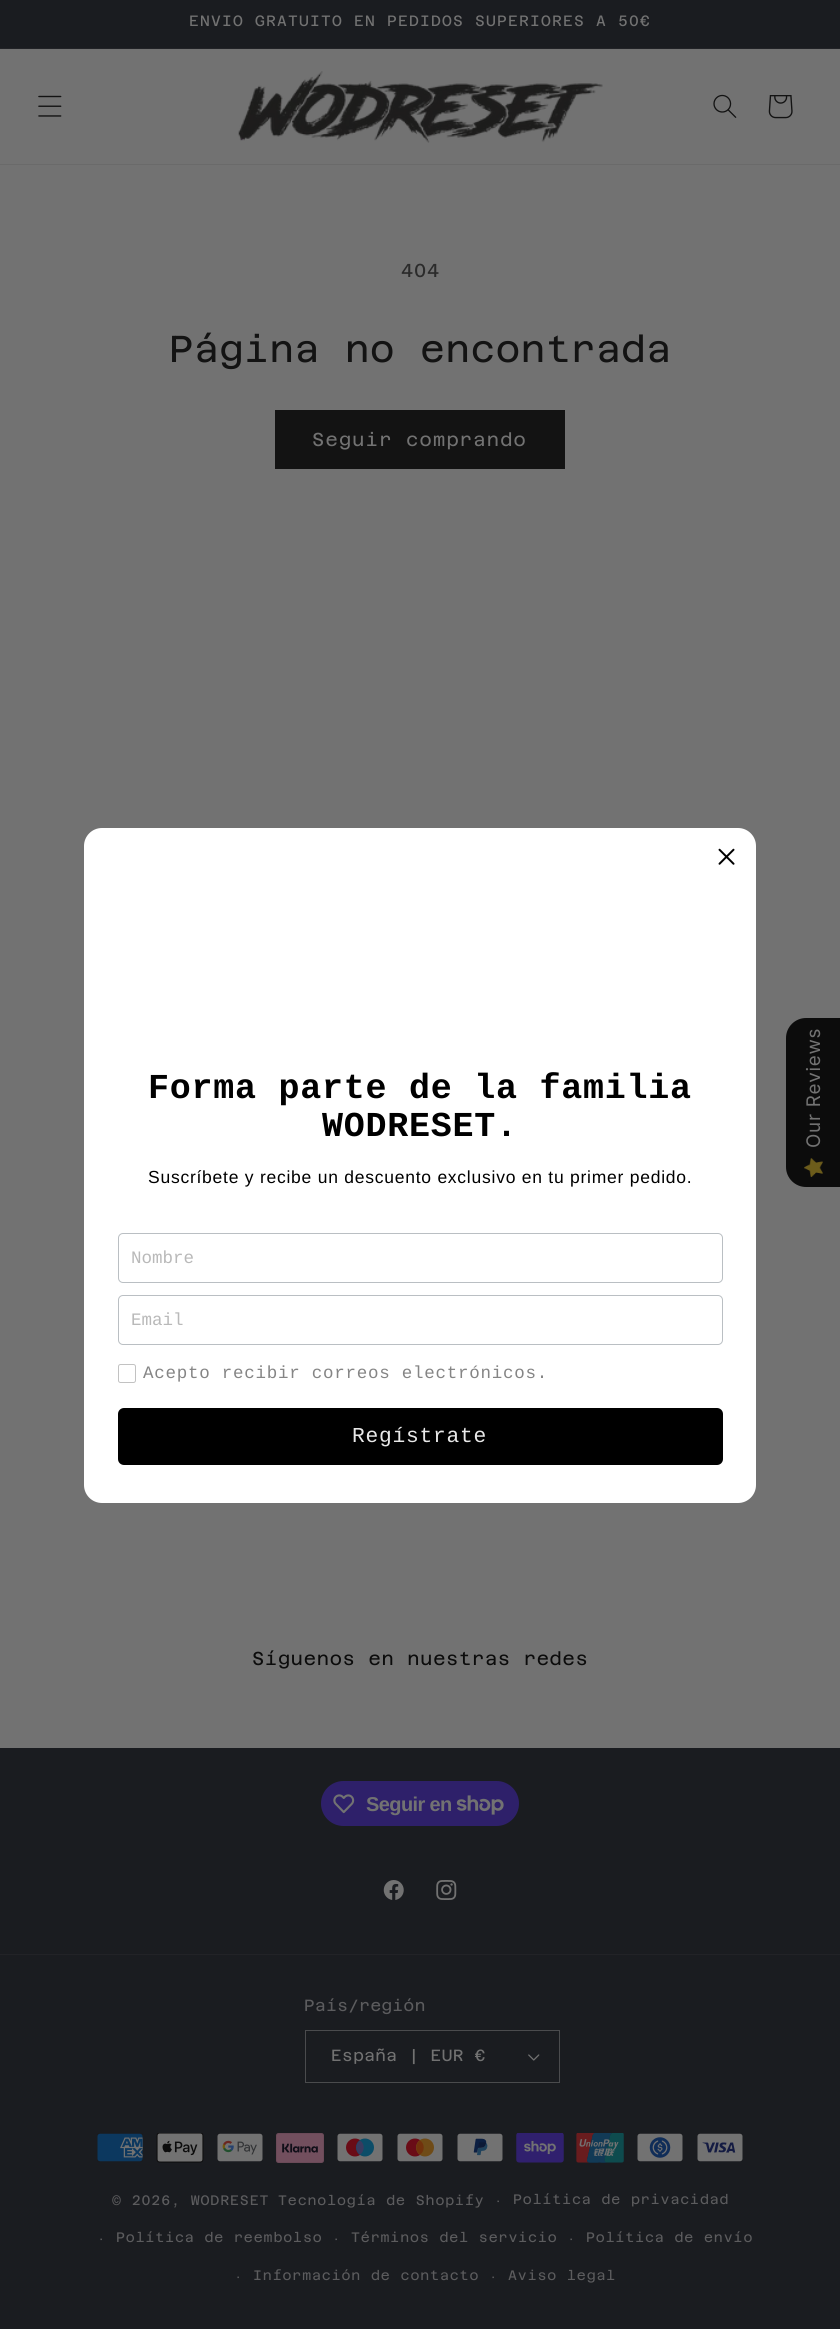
#include <cairo.h>
#include <math.h>
#include <stddef.h>


static void rgb(cairo_t *cr, int r, int g, int b)
{
	cairo_set_source_rgb(cr, r / 255.0, g / 255.0, b / 255.0);
}

static void face(cairo_t *cr, const char *family, double size, int italic, int bold)
{
	cairo_select_font_face(cr, family, italic ? CAIRO_FONT_SLANT_ITALIC : CAIRO_FONT_SLANT_NORMAL,
		bold ? CAIRO_FONT_WEIGHT_BOLD : CAIRO_FONT_WEIGHT_NORMAL);
	cairo_set_font_size(cr, size);
}

static void label(cairo_t *cr, double x, double y, const char *s)
{
	cairo_move_to(cr, x, y);
	cairo_show_text(cr, s);
}

static void tracked(cairo_t *cr, double x, double y, const char *s, double letter, double word)
{
	cairo_move_to(cr, x, y);
	while (*s) {
		char ch[5] = {0};
		int n = 0;
		do ch[n++] = *s++; while ((*s & 0xC0) == 0x80);
		cairo_show_text(cr, ch);
		cairo_rel_move_to(cr, letter + word * (*ch == ' '), 0);
	}
}

static void rect(cairo_t *cr, double x, double y, double w, double h)
{
	cairo_rectangle(cr, x, y, w, h);
	cairo_fill(cr);
}

static void rrect(cairo_t *cr, double x, double y, double w, double h, double r)
{
	cairo_new_sub_path(cr);
	cairo_arc(cr, x + w - r, y + h - r, r, 0, M_PI / 2);
	cairo_arc(cr, x + r, y + h - r, r, M_PI / 2, M_PI);
	cairo_arc(cr, x + r, y + r, r, M_PI, 1.5 * M_PI);
	cairo_arc(cr, x + w - r, y + r, r, 1.5 * M_PI, 2 * M_PI);
	cairo_close_path(cr);
}

static void image(cairo_t *cr, const char *path, double x, double y, double w, double h)
{
	cairo_surface_t *image = cairo_image_surface_create_from_png(path);
	cairo_save(cr);
	cairo_set_source_surface(cr, image, x, y);
	cairo_rectangle(cr, x, y, w, h);
	cairo_fill(cr);
	cairo_restore(cr);
	cairo_surface_destroy(image);
}

static void draw(cairo_t *cr) {
	rgb(cr, 114, 114, 114);
	cairo_paint(cr);
	rgb(cr, 26, 28, 32);
	rect(cr, 0, 0, 840, 48);
	rgb(cr, 34, 35, 39);
	rect(cr, 0, 48, 840, 1);
	face(cr, "Azeret Mono", 15, 0, 0);
	rgb(cr, 114, 114, 114);
	tracked(cr, 189, 26, "ENVIO GRATUITO EN PEDIDOS SUPERIORES A 50€", 1.25, 0);
	rgb(cr, 106, 106, 106);
	rect(cr, 0, 164, 840, 1);
	image(cr, "image0.png", 38, 95, 24, 22);
	image(cr, "image1.png", 238, 71, 365, 72);
	image(cr, "image2.png", 713, 94, 24, 24);
	image(cr, "image3.png", 768, 95, 25, 24);
	face(cr, "Azeret Mono", 18.75, 0, 0);
	rgb(cr, 43, 43, 43);
	tracked(cr, 401, 277, "404", 0.75, 0);
	face(cr, "Azeret Mono", 37.5, 0, 0);
	rgb(cr, 19, 19, 19);
	tracked(cr, 169, 362, "Página no encontrada", 0.75, 0);
	rect(cr, 275, 410, 290, 59);
	face(cr, "Azeret Mono", 18.75, 0, 0);
	rgb(cr, 114, 114, 114);
	tracked(cr, 312, 446, "Seguir comprando", 1.25, 0);
	rgb(cr, 255, 255, 255);
	rrect(cr, 84, 828, 672, 675, 18);
	cairo_fill(cr);
	image(cr, "image4.png", 718, 848, 17, 17);
	face(cr, "Liberation Mono", 35, 0, 1);
	rgb(cr, 0, 0, 0);
	tracked(cr, 148, 1098, "Forma parte de la familia", 0.75, 0);
	tracked(cr, 322, 1136, "WODRESET.", 0.75, 0);
	face(cr, "Liberation Sans", 17.5, 0, 0);
	tracked(cr, 148, 1183, "Suscríbete y recibe un descuento exclusivo en tu primer pedido.", 0.75, 0);
	rrect(cr, 118.5, 1233.5, 604, 49, 4.5);
	rgb(cr, 186, 191, 195);
	cairo_set_line_width(cr, 1);
	cairo_stroke(cr);
	face(cr, "Liberation Mono", 17.5, 0, 0);
	rgb(cr, 185, 185, 185);
	label(cr, 131, 1263, "Nombre");
	rrect(cr, 118.5, 1295.5, 604, 49, 4.5);
	rgb(cr, 186, 191, 195);
	cairo_stroke(cr);
	rgb(cr, 185, 185, 185);
	label(cr, 131, 1325, "Email");
	rrect(cr, 118.5, 1364.5, 17, 18, 2);
	rgb(cr, 194, 194, 194);
	cairo_stroke(cr);
	rgb(cr, 133, 133, 133);
	tracked(cr, 143, 1378, "Acepto recibir correos electrónicos.", 0.75, 0);
	rgb(cr, 0, 0, 0);
	rrect(cr, 119.5, 1409.5, 602, 54, 4.5);
	cairo_fill_preserve(cr);
	cairo_set_line_width(cr, 3);
	cairo_stroke(cr);
	face(cr, "Liberation Mono", 21.25, 0, 0);
	rgb(cr, 232, 232, 232);
	tracked(cr, 352, 1442, "Regístrate", 0.75, 0);
	rgb(cr, 12, 12, 12);
	cairo_new_path(cr);
	cairo_move_to(cr, 786, 1167);
	cairo_line_to(cr, 786, 1038);
	cairo_curve_to(cr, 786, 1027, 795, 1018, 806, 1018);
	cairo_line_to(cr, 840, 1018);
	cairo_line_to(cr, 840, 1187);
	cairo_line_to(cr, 806, 1187);
	cairo_curve_to(cr, 795, 1187, 786, 1178, 786, 1167);
	cairo_close_path(cr);
	cairo_fill(cr);
	face(cr, "Inter", 18.75, 0, 0);
	rgb(cr, 114, 114, 114);
	cairo_save(cr);
	cairo_translate(cr, 820, 1148);
	cairo_rotate(cr, -90 * M_PI / 180);
	tracked(cr, 0, 0, "Our Reviews", 0.75, 0);
	cairo_restore(cr);
	image(cr, "image5.png", 804, 1158, 19, 19);
	face(cr, "Azeret Mono", 18.75, 0, 0);
	rgb(cr, 12, 12, 12);
	tracked(cr, 252, 1665, "Síguenos en nuestras redes", 0.75, 0);
	rgb(cr, 26, 28, 32);
	rect(cr, 0, 1748, 840, 581);
	rgb(cr, 46, 32, 106);
	rrect(cr, 321, 1781, 198, 45, 22.5);
	cairo_fill(cr);
	image(cr, "image6.png", 333, 1794, 22, 20);
	face(cr, "Liberation Sans", 20, 0, 1);
	rgb(cr, 114, 114, 114);
	tracked(cr, 366, 1811, "Seguir en", -0.6, 0);
	image(cr, "image7.png", 456, 1795, 48, 20);
	image(cr, "image8.png", 383, 1880, 21, 20);
	image(cr, "image9.png", 436, 1880, 21, 20);
	rgb(cr, 34, 35, 39);
	rect(cr, 0, 1954, 840, 1);
	face(cr, "Azeret Mono", 16.25, 0, 0);
	rgb(cr, 92, 92, 94);
	tracked(cr, 304, 2011, "País/región", 0.5, 0);
	image(cr, "image10.png", 528, 2054, 12, 7);
	cairo_rectangle(cr, 305.5, 2030.5, 254, 52);
	rgb(cr, 74, 75, 77);
	cairo_set_line_width(cr, 1);
	cairo_stroke(cr);
	rgb(cr, 114, 114, 114);
	tracked(cr, 331, 2061, "España | EUR €", 0.5, 0);
	image(cr, "image11.png", 97, 2133, 46, 29);
	image(cr, "image12.png", 156, 2133, 48, 30);
	image(cr, "image13.png", 217, 2133, 46, 29);
	image(cr, "image14.png", 276, 2133, 48, 30);
	image(cr, "image15.png", 337, 2133, 46, 29);
	image(cr, "image16.png", 397, 2133, 46, 29);
	image(cr, "image17.png", 457, 2133, 46, 29);
	image(cr, "image18.png", 516, 2133, 48, 30);
	image(cr, "image19.png", 576, 2133, 48, 30);
	image(cr, "image20.png", 637, 2133, 46, 29);
	image(cr, "image21.png", 697, 2133, 46, 29);
	face(cr, "Azeret Mono", 12, 0, 0);
	rgb(cr, 92, 92, 94);
	tracked(cr, 494, 2205, "·", 0.9, 0);
	face(cr, "Azeret Mono", 13.75, 0, 0);
	tracked(cr, 513, 2204, "Política de privacidad", 0.9, 0);
	face(cr, "Azeret Mono", 12, 0, 0);
	tracked(cr, 97, 2243, "·", 0.9, 0);
	face(cr, "Azeret Mono", 13.75, 0, 0);
	tracked(cr, 116, 2242, "Política de reembolso", 0.9, 0);
	face(cr, "Azeret Mono", 12, 0, 0);
	tracked(cr, 332, 2243, "·", 0.9, 0);
	face(cr, "Azeret Mono", 13.75, 0, 0);
	tracked(cr, 351, 2242, "Términos del servicio", 0.9, 0);
	face(cr, "Azeret Mono", 12, 0, 0);
	tracked(cr, 567, 2243, "·", 0.9, 0);
	face(cr, "Azeret Mono", 13.75, 0, 0);
	tracked(cr, 586, 2242, "Política de envío", 0.9, 0);
	face(cr, "Azeret Mono", 12, 0, 0);
	tracked(cr, 234, 2281, "·", 0.9, 0);
	face(cr, "Azeret Mono", 13.75, 0, 0);
	tracked(cr, 253, 2280, "Información de contacto", 0.9, 0);
	face(cr, "Azeret Mono", 12, 0, 0);
	tracked(cr, 489, 2281, "·", 0.9, 0);
	face(cr, "Azeret Mono", 13.75, 0, 0);
	tracked(cr, 508, 2280, "Aviso legal", 0.9, 0);
	tracked(cr, 112, 2205, "© 2026, WODRESET", 0.9, 0);
	tracked(cr, 278, 2205, "Tecnología de Shopify", 0.9, 0);
}

int main(void) {
	cairo_surface_t *surface = cairo_image_surface_create(CAIRO_FORMAT_RGB24, 840, 2329);
	cairo_t *cr = cairo_create(surface);
	cairo_font_options_t *options = cairo_font_options_create();
	cairo_font_options_set_hint_metrics(options, CAIRO_HINT_METRICS_OFF);
	cairo_font_options_set_hint_style(options, CAIRO_HINT_STYLE_NONE);
	cairo_set_font_options(cr, options);
	cairo_set_miter_limit(cr, 4);
	draw(cr);
	cairo_surface_write_to_png(surface, "render.png");
	cairo_font_options_destroy(options);
	cairo_destroy(cr);
	cairo_surface_destroy(surface);
	return 0;
}
